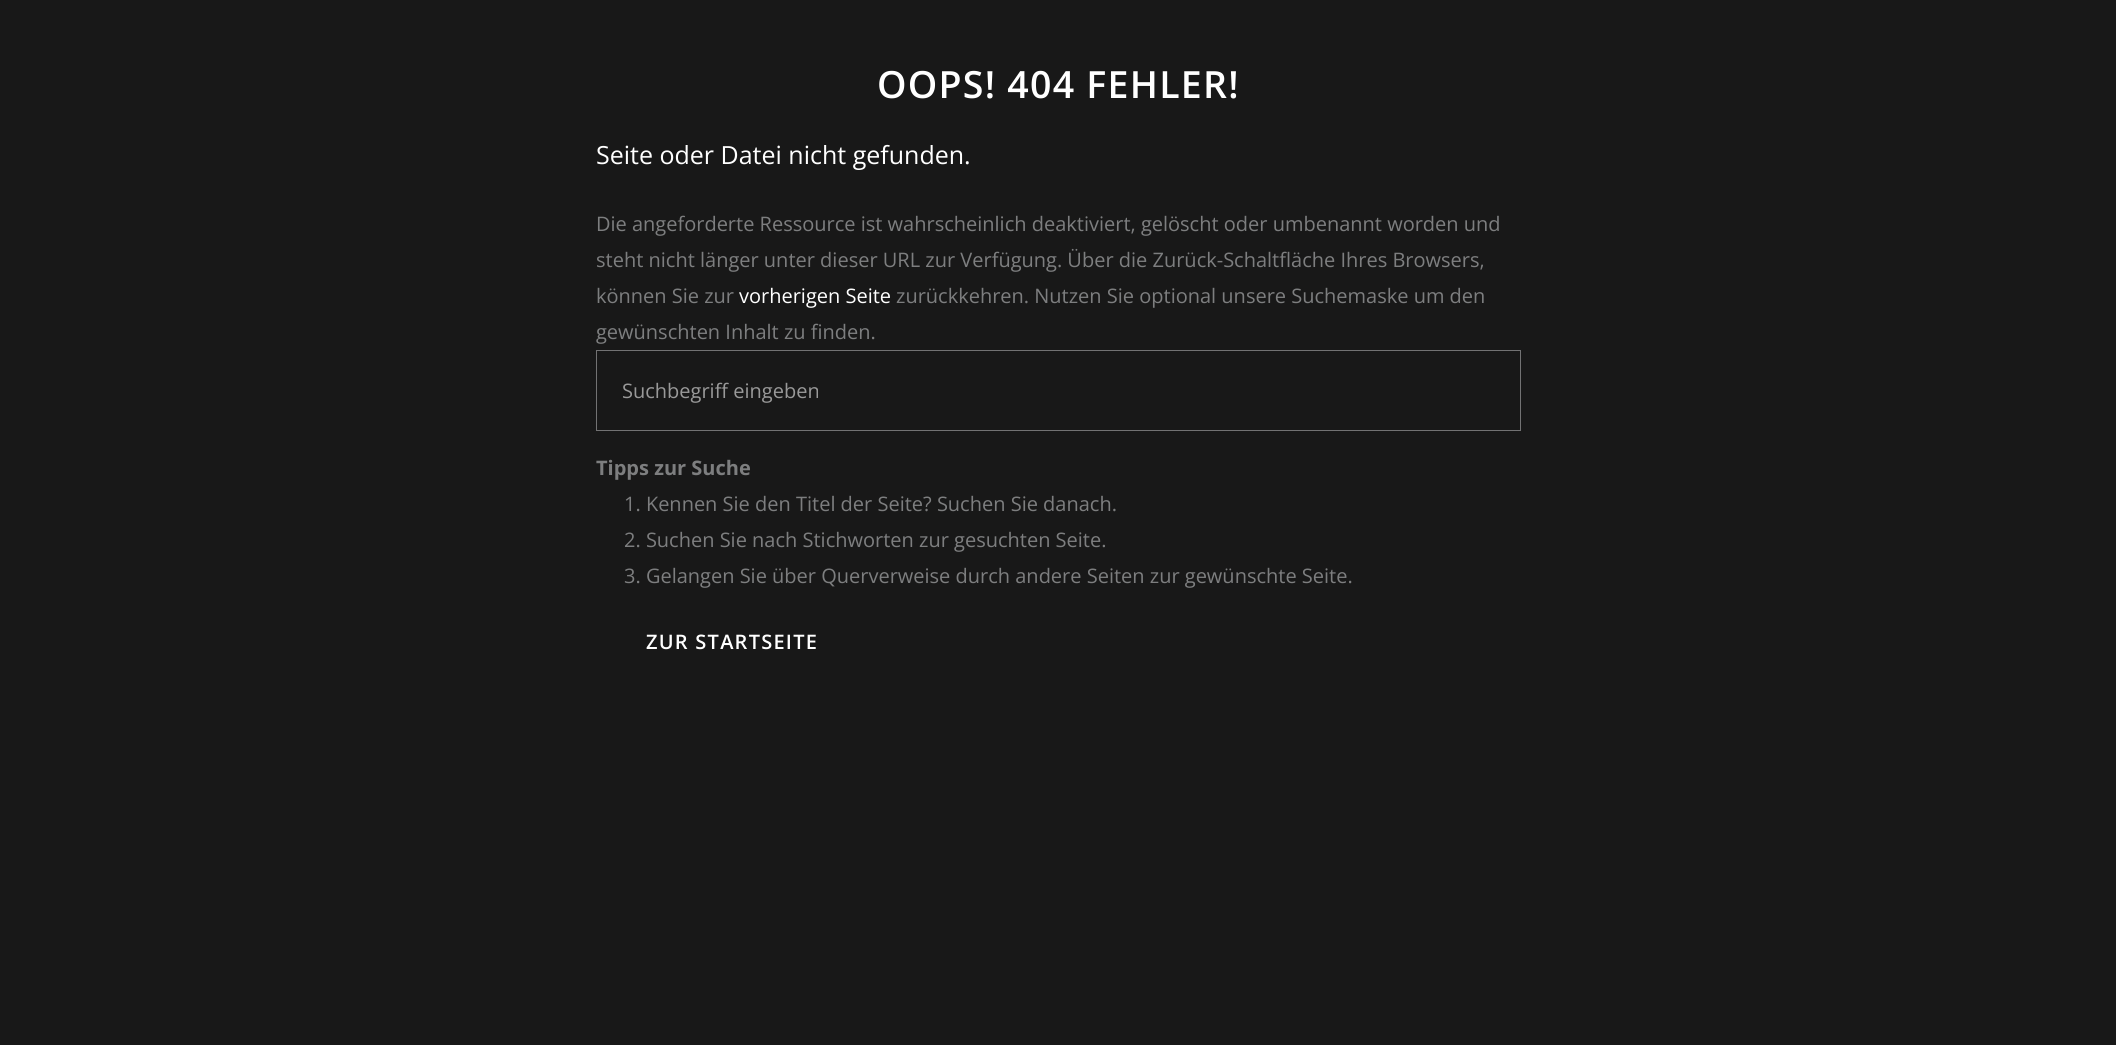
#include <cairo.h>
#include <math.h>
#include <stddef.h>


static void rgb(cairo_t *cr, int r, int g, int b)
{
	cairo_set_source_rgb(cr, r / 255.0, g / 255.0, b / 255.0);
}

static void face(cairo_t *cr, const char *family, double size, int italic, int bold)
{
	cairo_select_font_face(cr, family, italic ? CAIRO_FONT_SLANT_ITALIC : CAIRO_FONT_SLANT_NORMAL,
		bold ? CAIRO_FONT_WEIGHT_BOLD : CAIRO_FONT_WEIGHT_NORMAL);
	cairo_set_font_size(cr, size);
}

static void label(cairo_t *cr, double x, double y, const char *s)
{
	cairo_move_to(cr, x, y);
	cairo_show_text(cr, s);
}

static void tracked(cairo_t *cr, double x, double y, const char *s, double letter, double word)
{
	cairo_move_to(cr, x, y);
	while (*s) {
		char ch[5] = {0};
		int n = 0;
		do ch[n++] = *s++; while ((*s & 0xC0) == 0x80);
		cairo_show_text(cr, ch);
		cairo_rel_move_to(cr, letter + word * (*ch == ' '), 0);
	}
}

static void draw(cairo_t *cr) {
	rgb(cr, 24, 24, 24);
	cairo_paint(cr);
	face(cr, "Open Sans SemiBold", 37.5, 0, 0);
	rgb(cr, 255, 255, 255);
	tracked(cr, 877, 98, "OOPS! 404 FEHLER!", 1.25, 0);
	face(cr, "Open Sans", 25, 0, 0);
	label(cr, 596, 164, "Seite oder Datei nicht gefunden.");
	face(cr, "Open Sans", 20, 0, 0);
	rgb(cr, 125, 126, 127);
	label(cr, 596, 231, "Die angeforderte Ressource ist wahrscheinlich deaktiviert, gelöscht oder umbenannt worden und");
	label(cr, 596, 267, "steht nicht länger unter dieser URL zur Verfügung. Über die Zurück-Schaltfläche Ihres Browsers,");
	label(cr, 596, 303, "können Sie zur");
	rgb(cr, 255, 255, 255);
	label(cr, 739, 303, "vorherigen Seite");
	rgb(cr, 125, 126, 127);
	label(cr, 896, 303, "zurückkehren. Nutzen Sie optional unsere Suchemaske um den");
	label(cr, 596, 339, "gewünschten Inhalt zu finden.");
	cairo_rectangle(cr, 596.5, 350.5, 924, 80);
	rgb(cr, 114, 114, 115);
	cairo_set_line_width(cr, 1);
	cairo_stroke(cr);
	rgb(cr, 153, 153, 153);
	label(cr, 622, 398, "Suchbegriff eingeben");
	face(cr, "Open Sans", 20, 0, 1);
	rgb(cr, 125, 126, 127);
	label(cr, 596, 475, "Tipps zur Suche");
	face(cr, "Open Sans", 20, 0, 0);
	label(cr, 624, 511, "1. Kennen Sie den Titel der Seite? Suchen Sie danach.");
	label(cr, 624, 547, "2. Suchen Sie nach Stichworten zur gesuchten Seite.");
	label(cr, 624, 583, "3. Gelangen Sie über Querverweise durch andere Seiten zur gewünschte Seite.");
	face(cr, "Open Sans SemiBold", 20, 0, 0);
	rgb(cr, 255, 255, 255);
	tracked(cr, 646, 649, "ZUR STARTSEITE", 1.25, 0);
}

int main(void) {
	cairo_surface_t *surface = cairo_image_surface_create(CAIRO_FORMAT_RGB24, 2116, 1045);
	cairo_t *cr = cairo_create(surface);
	cairo_font_options_t *options = cairo_font_options_create();
	cairo_font_options_set_hint_metrics(options, CAIRO_HINT_METRICS_OFF);
	cairo_font_options_set_hint_style(options, CAIRO_HINT_STYLE_NONE);
	cairo_set_font_options(cr, options);
	cairo_set_miter_limit(cr, 4);
	draw(cr);
	cairo_surface_write_to_png(surface, "render.png");
	cairo_font_options_destroy(options);
	cairo_destroy(cr);
	cairo_surface_destroy(surface);
	return 0;
}
